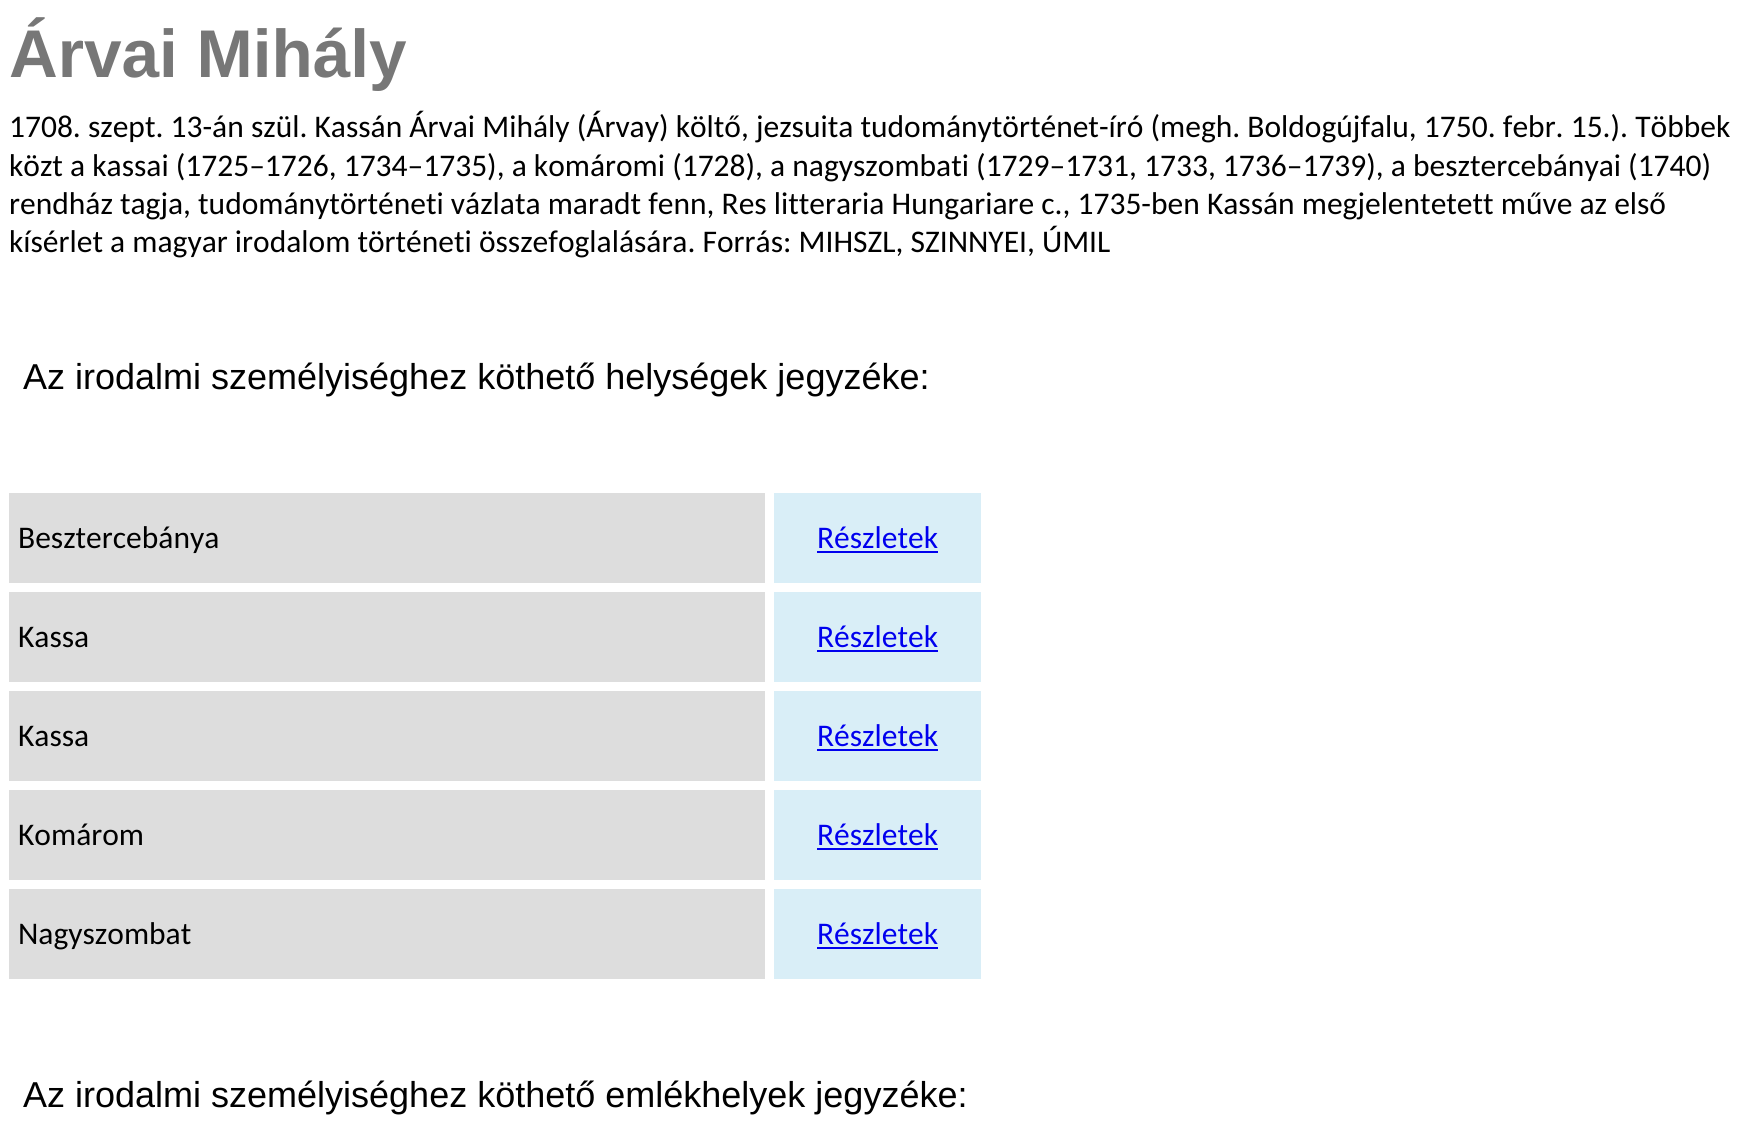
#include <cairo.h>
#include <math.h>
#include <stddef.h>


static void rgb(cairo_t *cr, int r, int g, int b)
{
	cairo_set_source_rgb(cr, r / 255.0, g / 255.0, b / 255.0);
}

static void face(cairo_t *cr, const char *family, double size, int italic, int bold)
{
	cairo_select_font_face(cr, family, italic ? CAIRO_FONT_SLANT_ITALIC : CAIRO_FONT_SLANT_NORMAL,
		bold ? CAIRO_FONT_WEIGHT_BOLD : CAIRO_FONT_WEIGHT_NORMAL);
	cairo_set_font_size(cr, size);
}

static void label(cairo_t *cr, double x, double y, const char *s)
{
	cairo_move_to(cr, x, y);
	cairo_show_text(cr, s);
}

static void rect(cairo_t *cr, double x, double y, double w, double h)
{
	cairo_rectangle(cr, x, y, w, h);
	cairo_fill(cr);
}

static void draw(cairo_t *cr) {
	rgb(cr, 255, 255, 255);
	cairo_paint(cr);
	face(cr, "Liberation Sans", 67.5, 0, 1);
	rgb(cr, 119, 119, 119);
	label(cr, 9, 77, "Árvai Mihály");
	face(cr, "Carlito", 31.5, 0, 0);
	rgb(cr, 0, 0, 0);
	label(cr, 9, 137, "1708. szept. 13-án szül. Kassán Árvai Mihály (Árvay) költő, jezsuita tudománytörténet-író (megh. Boldogújfalu, 1750. febr. 15.). Többek");
	label(cr, 9, 176, "közt a kassai (1725–1726, 1734–1735), a komáromi (1728), a nagyszombati (1729–1731, 1733, 1736–1739), a besztercebányai (1740)");
	label(cr, 9, 214, "rendház tagja, tudománytörténeti vázlata maradt fenn, Res litteraria Hungariare c., 1735-ben Kassán megjelentetett műve az első");
	label(cr, 9, 252, "kísérlet a magyar irodalom történeti összefoglalására. Forrás: MIHSZL, SZINNYEI, ÚMIL");
	face(cr, "Liberation Sans", 36, 0, 0);
	label(cr, 23, 389, "Az irodalmi személyiséghez köthető helységek jegyzéke:");
	rgb(cr, 221, 221, 221);
	rect(cr, 9, 493, 756, 90);
	face(cr, "Carlito", 31.5, 0, 0);
	rgb(cr, 0, 0, 0);
	label(cr, 18, 548, "Besztercebánya");
	rgb(cr, 217, 238, 247);
	rect(cr, 774, 493, 207, 90);
	rgb(cr, 0, 0, 238);
	label(cr, 817, 548, "Részletek");
	rect(cr, 817, 551, 121, 2);
	rgb(cr, 221, 221, 221);
	rect(cr, 9, 592, 756, 90);
	rgb(cr, 0, 0, 0);
	label(cr, 18, 647, "Kassa");
	rgb(cr, 217, 238, 247);
	rect(cr, 774, 592, 207, 90);
	rgb(cr, 0, 0, 238);
	label(cr, 817, 647, "Részletek");
	rect(cr, 817, 650, 121, 2);
	rgb(cr, 221, 221, 221);
	rect(cr, 9, 691, 756, 90);
	rgb(cr, 0, 0, 0);
	label(cr, 18, 746, "Kassa");
	rgb(cr, 217, 238, 247);
	rect(cr, 774, 691, 207, 90);
	rgb(cr, 0, 0, 238);
	label(cr, 817, 746, "Részletek");
	rect(cr, 817, 749, 121, 2);
	rgb(cr, 221, 221, 221);
	rect(cr, 9, 790, 756, 90);
	rgb(cr, 0, 0, 0);
	label(cr, 18, 845, "Komárom");
	rgb(cr, 217, 238, 247);
	rect(cr, 774, 790, 207, 90);
	rgb(cr, 0, 0, 238);
	label(cr, 817, 845, "Részletek");
	rect(cr, 817, 848, 121, 2);
	rgb(cr, 221, 221, 221);
	rect(cr, 9, 889, 756, 90);
	rgb(cr, 0, 0, 0);
	label(cr, 18, 944, "Nagyszombat");
	rgb(cr, 217, 238, 247);
	rect(cr, 774, 889, 207, 90);
	rgb(cr, 0, 0, 238);
	label(cr, 817, 944, "Részletek");
	rect(cr, 817, 947, 121, 2);
	face(cr, "Liberation Sans", 36, 0, 0);
	rgb(cr, 0, 0, 0);
	label(cr, 23, 1107, "Az irodalmi személyiséghez köthető emlékhelyek jegyzéke:");
}

int main(void) {
	cairo_surface_t *surface = cairo_image_surface_create(CAIRO_FORMAT_RGB24, 1743, 1138);
	cairo_t *cr = cairo_create(surface);
	cairo_font_options_t *options = cairo_font_options_create();
	cairo_font_options_set_hint_metrics(options, CAIRO_HINT_METRICS_OFF);
	cairo_font_options_set_hint_style(options, CAIRO_HINT_STYLE_NONE);
	cairo_set_font_options(cr, options);
	cairo_set_miter_limit(cr, 4);
	draw(cr);
	cairo_surface_write_to_png(surface, "render.png");
	cairo_font_options_destroy(options);
	cairo_destroy(cr);
	cairo_surface_destroy(surface);
	return 0;
}
